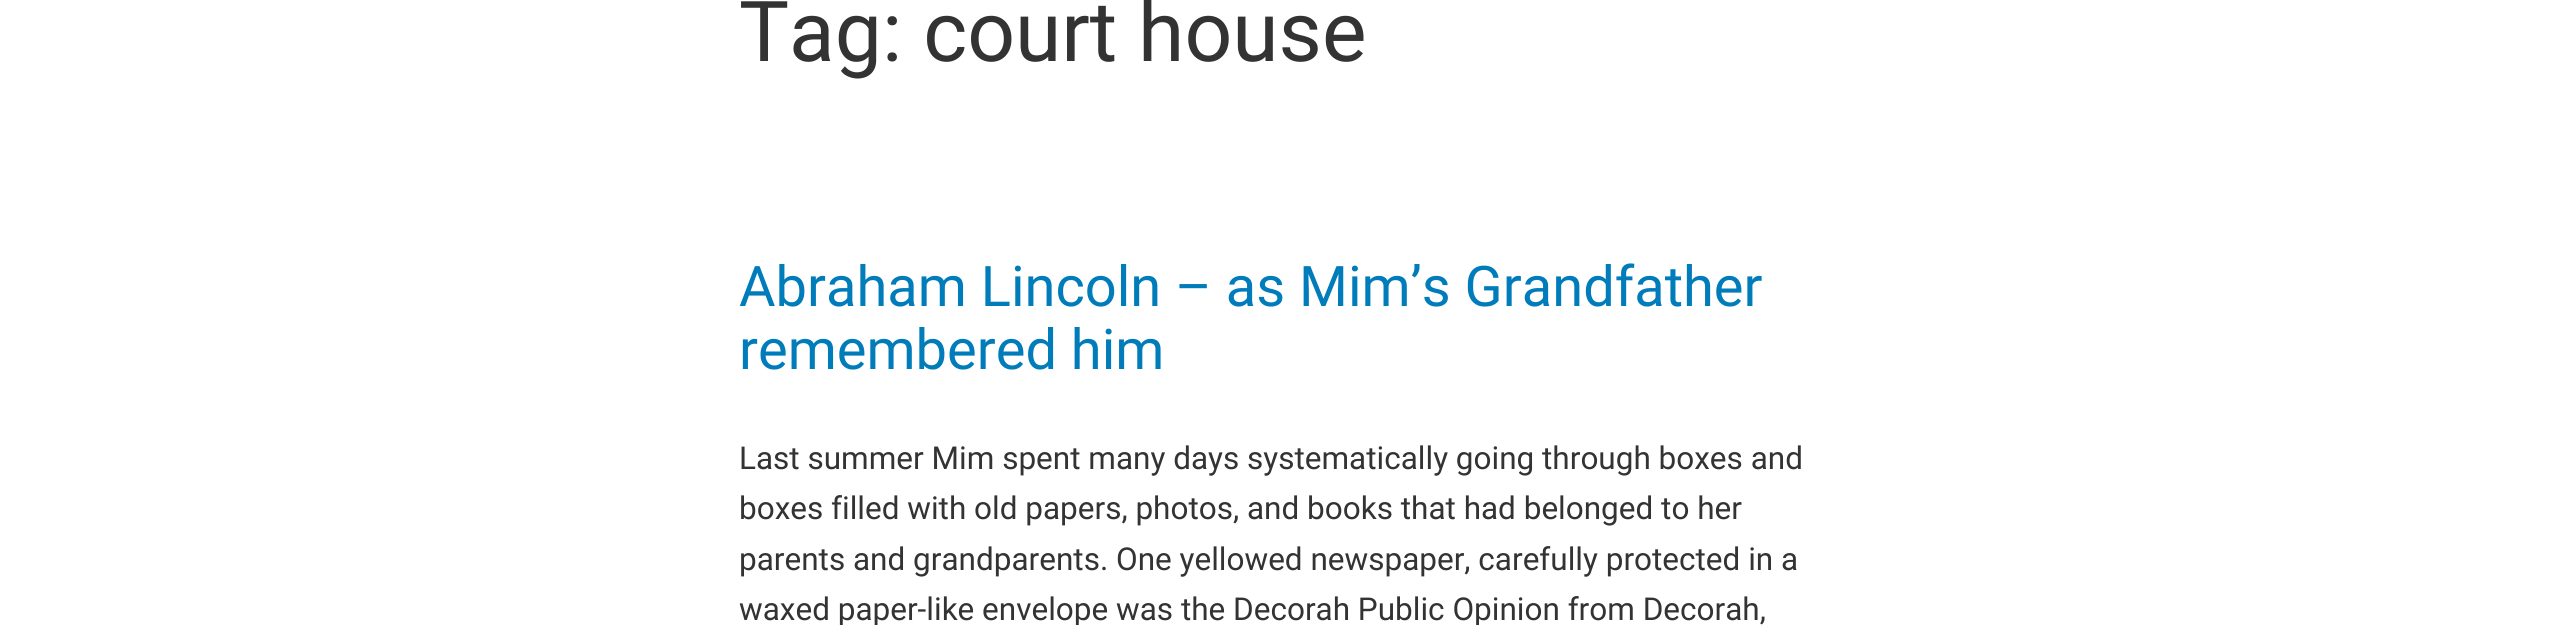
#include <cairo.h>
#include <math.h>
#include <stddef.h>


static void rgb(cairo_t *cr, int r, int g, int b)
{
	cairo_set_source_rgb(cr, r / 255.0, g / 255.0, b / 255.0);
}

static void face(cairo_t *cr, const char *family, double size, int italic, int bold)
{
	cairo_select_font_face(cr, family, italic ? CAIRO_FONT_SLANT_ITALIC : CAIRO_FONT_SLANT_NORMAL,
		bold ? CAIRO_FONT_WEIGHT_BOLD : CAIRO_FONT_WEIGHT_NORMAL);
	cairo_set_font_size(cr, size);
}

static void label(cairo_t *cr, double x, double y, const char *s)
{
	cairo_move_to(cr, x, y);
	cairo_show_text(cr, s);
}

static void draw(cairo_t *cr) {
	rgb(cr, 255, 255, 255);
	cairo_paint(cr);
	face(cr, "Roboto", 84, 0, 0);
	rgb(cr, 51, 51, 51);
	label(cr, 739, 61, "Tag: court house");
	face(cr, "Roboto", 56, 0, 0);
	rgb(cr, 0, 124, 186);
	label(cr, 739, 306, "Abraham Lincoln – as Mim’s Grandfather");
	label(cr, 739, 369, "remembered him");
	face(cr, "Roboto", 31.5, 0, 0);
	rgb(cr, 51, 51, 51);
	label(cr, 739, 469, "Last summer Mim spent many days systematically going through boxes and");
	label(cr, 739, 519, "boxes filled with old papers, photos, and books that had belonged to her");
	label(cr, 739, 570, "parents and grandparents. One yellowed newspaper, carefully protected in a");
	label(cr, 739, 620, "waxed paper-like envelope was the Decorah Public Opinion from Decorah,");
}

int main(void) {
	cairo_surface_t *surface = cairo_image_surface_create(CAIRO_FORMAT_RGB24, 2563, 625);
	cairo_t *cr = cairo_create(surface);
	cairo_font_options_t *options = cairo_font_options_create();
	cairo_font_options_set_hint_metrics(options, CAIRO_HINT_METRICS_OFF);
	cairo_font_options_set_hint_style(options, CAIRO_HINT_STYLE_NONE);
	cairo_set_font_options(cr, options);
	cairo_set_miter_limit(cr, 4);
	draw(cr);
	cairo_surface_write_to_png(surface, "render.png");
	cairo_font_options_destroy(options);
	cairo_destroy(cr);
	cairo_surface_destroy(surface);
	return 0;
}
